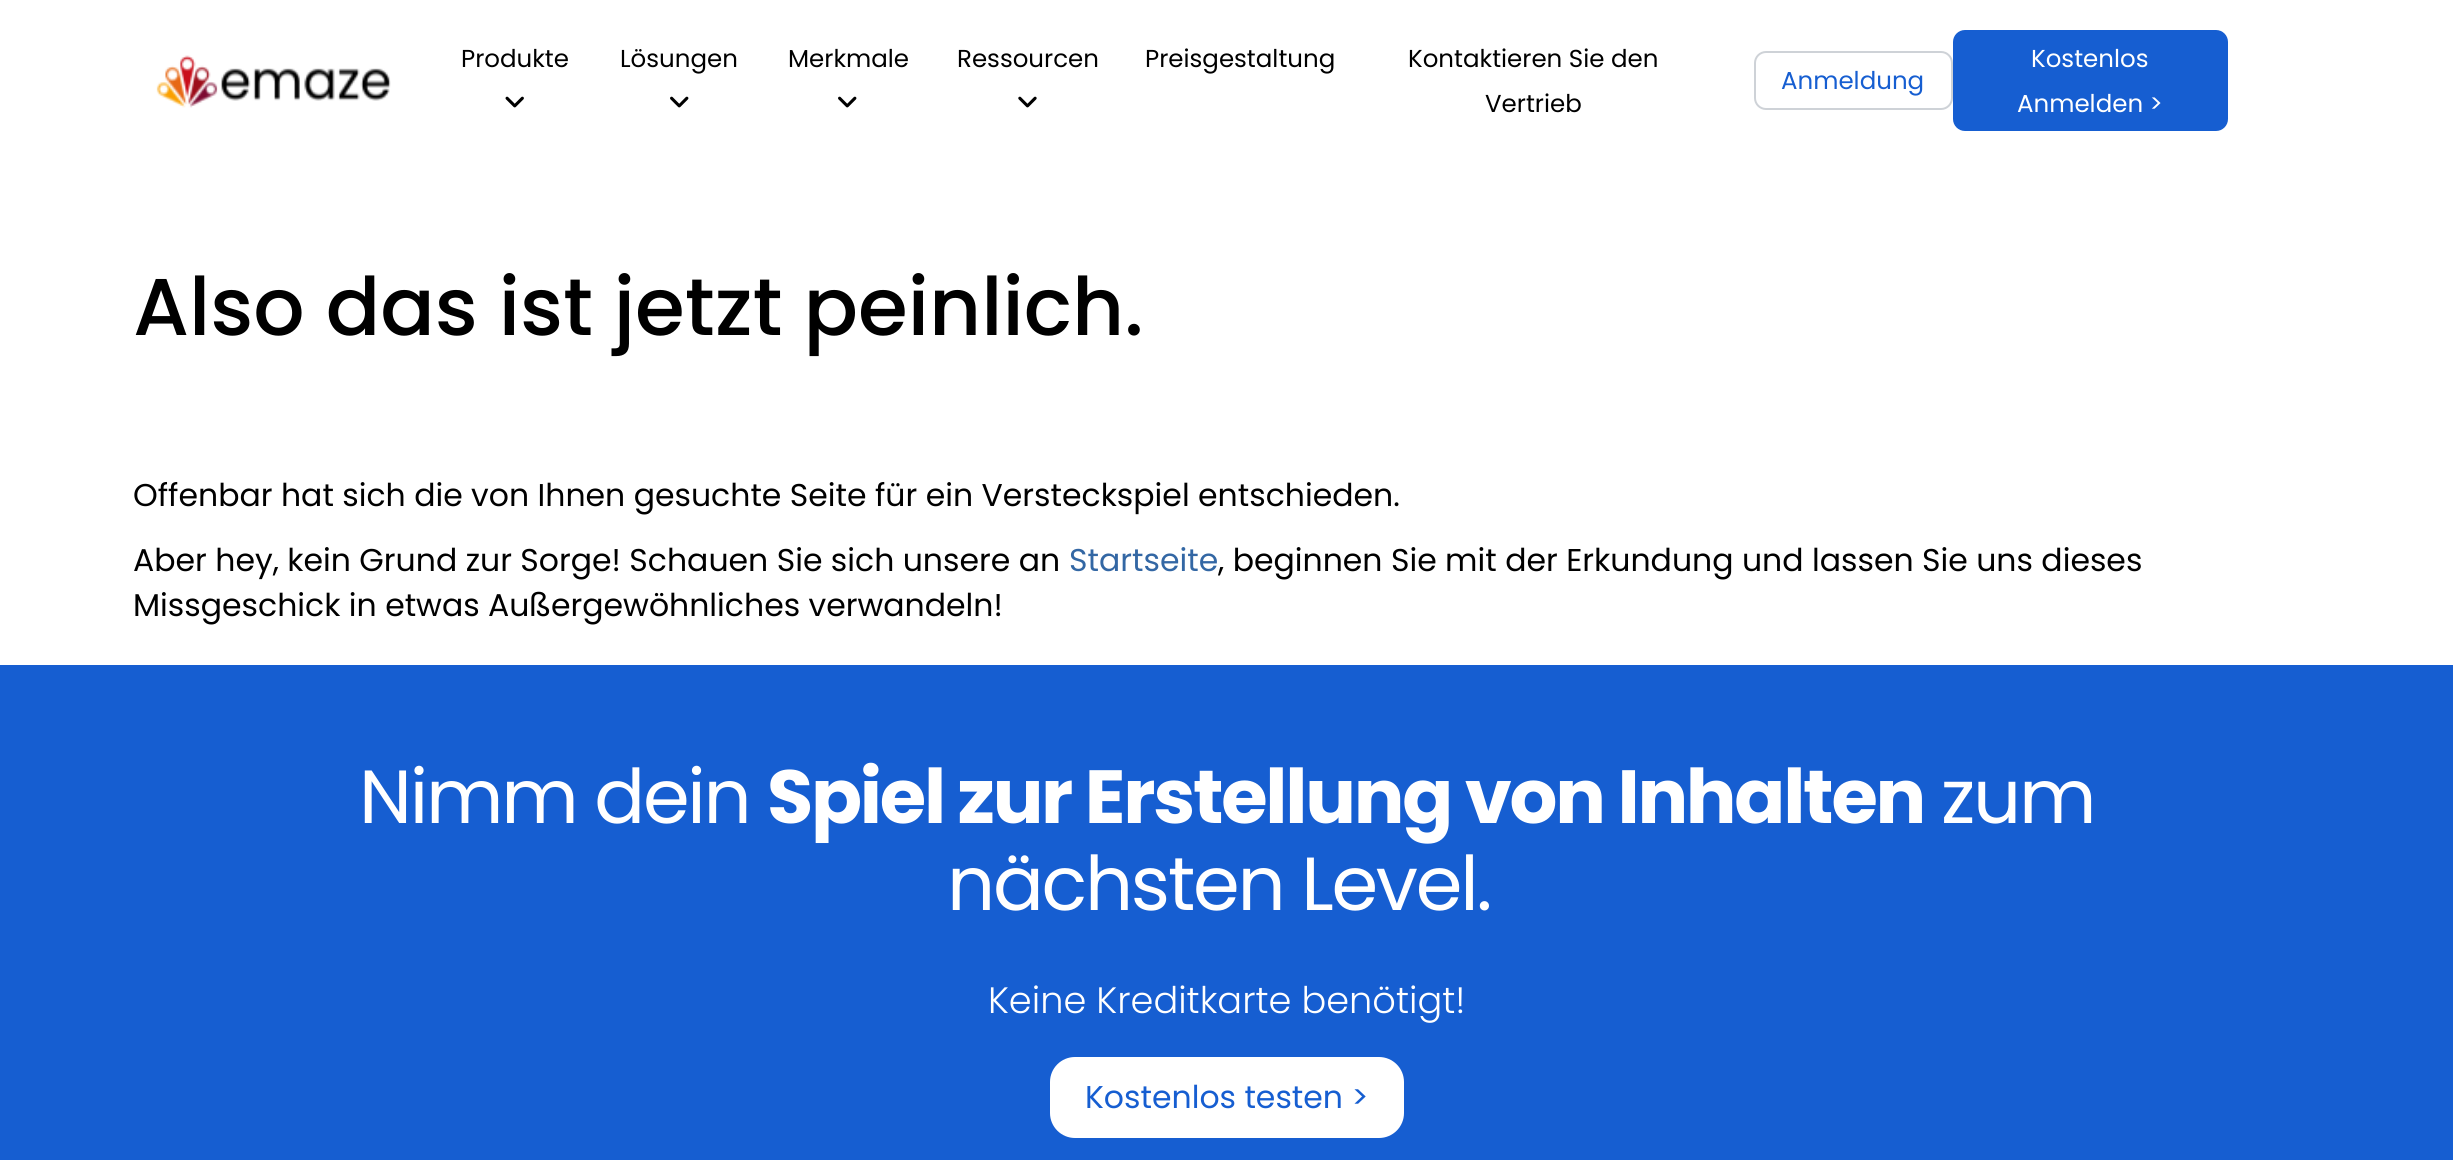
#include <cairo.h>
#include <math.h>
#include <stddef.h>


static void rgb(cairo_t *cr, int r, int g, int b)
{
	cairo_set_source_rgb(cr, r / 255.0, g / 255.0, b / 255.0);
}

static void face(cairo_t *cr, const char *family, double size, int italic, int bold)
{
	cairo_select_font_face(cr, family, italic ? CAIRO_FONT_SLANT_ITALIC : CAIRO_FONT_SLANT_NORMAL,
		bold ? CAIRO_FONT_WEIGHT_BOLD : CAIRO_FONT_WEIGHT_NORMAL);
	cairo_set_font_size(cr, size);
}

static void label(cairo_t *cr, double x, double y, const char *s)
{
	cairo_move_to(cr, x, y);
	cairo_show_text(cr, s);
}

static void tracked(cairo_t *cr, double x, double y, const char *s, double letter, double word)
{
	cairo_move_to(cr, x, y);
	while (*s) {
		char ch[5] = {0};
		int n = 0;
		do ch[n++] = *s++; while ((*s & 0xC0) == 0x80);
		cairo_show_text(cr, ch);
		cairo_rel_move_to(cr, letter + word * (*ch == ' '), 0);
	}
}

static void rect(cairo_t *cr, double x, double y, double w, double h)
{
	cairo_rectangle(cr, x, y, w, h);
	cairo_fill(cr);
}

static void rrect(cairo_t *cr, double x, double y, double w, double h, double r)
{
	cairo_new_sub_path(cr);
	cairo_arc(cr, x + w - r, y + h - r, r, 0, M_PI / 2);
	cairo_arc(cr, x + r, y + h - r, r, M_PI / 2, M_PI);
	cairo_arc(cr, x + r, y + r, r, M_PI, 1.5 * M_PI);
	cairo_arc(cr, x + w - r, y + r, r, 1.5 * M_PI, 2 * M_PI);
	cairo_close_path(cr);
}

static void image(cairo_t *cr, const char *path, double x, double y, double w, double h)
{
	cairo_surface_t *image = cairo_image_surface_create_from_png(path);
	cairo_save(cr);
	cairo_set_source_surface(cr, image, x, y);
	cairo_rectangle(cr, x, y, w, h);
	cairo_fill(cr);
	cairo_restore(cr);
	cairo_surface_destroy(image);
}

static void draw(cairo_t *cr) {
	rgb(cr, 255, 255, 255);
	cairo_paint(cr);
	image(cr, "image0.png", 156, 55, 235, 53);
	face(cr, "Poppins", 24.5, 0, 0);
	rgb(cr, 0, 0, 0);
	label(cr, 461, 67, "Produkte");
	image(cr, "image1.png", 505, 96, 19, 12);
	label(cr, 620, 67, "Lösungen");
	image(cr, "image2.png", 670, 96, 19, 12);
	label(cr, 788, 67, "Merkmale");
	image(cr, "image2.png", 838, 96, 19, 12);
	label(cr, 957, 67, "Ressourcen");
	image(cr, "image3.png", 1018, 96, 19, 12);
	label(cr, 1145, 67, "Preisgestaltung");
	label(cr, 1408, 67, "Kontaktieren Sie den");
	label(cr, 1485, 112, "Vertrieb");
	rrect(cr, 1755, 52, 197, 57, 11);
	rgb(cr, 206, 210, 215);
	cairo_stroke(cr);
	rgb(cr, 22, 94, 209);
	label(cr, 1781, 89, "Anmeldung");
	rrect(cr, 1953, 30, 275, 101, 12);
	cairo_fill(cr);
	rgb(cr, 255, 255, 255);
	label(cr, 2031, 67, "Kostenlos");
	label(cr, 2017, 112, "Anmelden >");
	face(cr, "Poppins Medium", 80.5, 0, 0);
	rgb(cr, 0, 0, 0);
	label(cr, 133, 335, "Also das ist jetzt peinlich.");
	face(cr, "Poppins", 31.5, 0, 0);
	label(cr, 133, 506, "Offenbar hat sich die von Ihnen gesuchte Seite für ein Versteckspiel entschieden.");
	label(cr, 133, 571, "Aber hey, kein Grund zur Sorge! Schauen Sie sich unsere an");
	rgb(cr, 51, 103, 164);
	label(cr, 1069, 571, "Startseite");
	rgb(cr, 0, 0, 0);
	label(cr, 1218, 571, ", beginnen Sie mit der Erkundung und lassen Sie uns dieses");
	label(cr, 133, 616, "Missgeschick in etwas Außergewöhnliches verwandeln!");
	rgb(cr, 22, 94, 209);
	rect(cr, 0, 665, 2453, 495);
	face(cr, "Poppins", 75.25, 0, 0);
	rgb(cr, 255, 255, 255);
	tracked(cr, 359, 823, "Nimm dein", -2.25, 0);
	face(cr, "Poppins", 75.25, 0, 1);
	tracked(cr, 767, 823, "Spiel zur Erstellung von Inhalten", -2.25, 0);
	face(cr, "Poppins", 75.25, 0, 0);
	tracked(cr, 1941, 823, "zum", -2.25, 0);
	tracked(cr, 947, 910, "nächsten Level.", -2.25, 0);
	face(cr, "Poppins Light", 36.75, 0, 0);
	label(cr, 988, 1013, "Keine Kreditkarte benötigt!");
	rrect(cr, 1050, 1057, 354, 81, 25);
	cairo_fill(cr);
	face(cr, "Poppins", 31.5, 0, 0);
	rgb(cr, 22, 94, 209);
	label(cr, 1085, 1108, "Kostenlos testen >");
}

int main(void) {
	cairo_surface_t *surface = cairo_image_surface_create(CAIRO_FORMAT_RGB24, 2453, 1160);
	cairo_t *cr = cairo_create(surface);
	cairo_font_options_t *options = cairo_font_options_create();
	cairo_font_options_set_hint_metrics(options, CAIRO_HINT_METRICS_OFF);
	cairo_font_options_set_hint_style(options, CAIRO_HINT_STYLE_NONE);
	cairo_set_font_options(cr, options);
	cairo_set_miter_limit(cr, 4);
	draw(cr);
	cairo_surface_write_to_png(surface, "render.png");
	cairo_font_options_destroy(options);
	cairo_destroy(cr);
	cairo_surface_destroy(surface);
	return 0;
}
